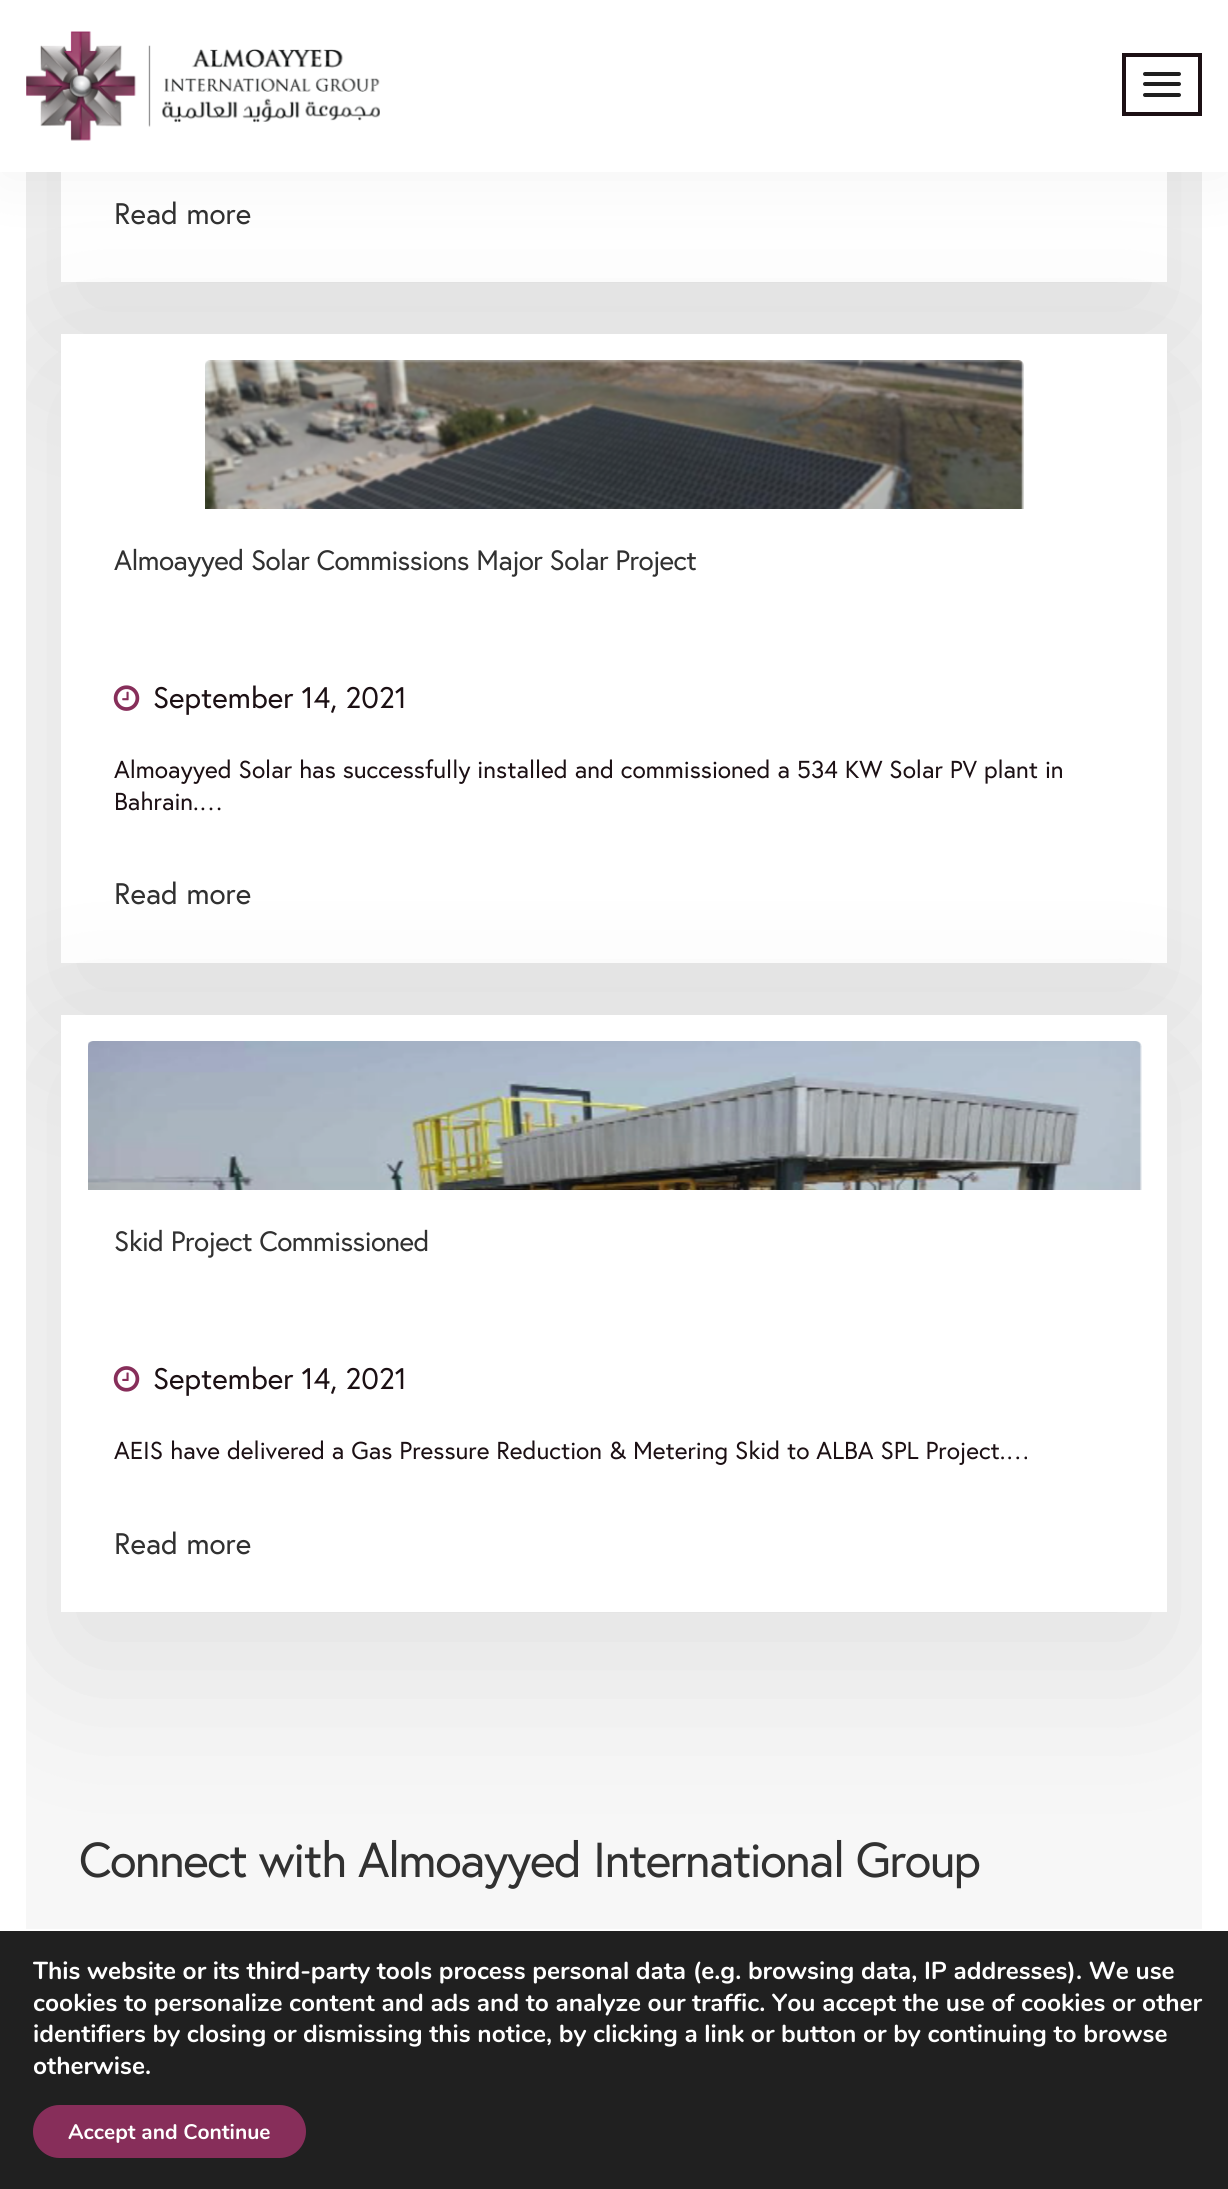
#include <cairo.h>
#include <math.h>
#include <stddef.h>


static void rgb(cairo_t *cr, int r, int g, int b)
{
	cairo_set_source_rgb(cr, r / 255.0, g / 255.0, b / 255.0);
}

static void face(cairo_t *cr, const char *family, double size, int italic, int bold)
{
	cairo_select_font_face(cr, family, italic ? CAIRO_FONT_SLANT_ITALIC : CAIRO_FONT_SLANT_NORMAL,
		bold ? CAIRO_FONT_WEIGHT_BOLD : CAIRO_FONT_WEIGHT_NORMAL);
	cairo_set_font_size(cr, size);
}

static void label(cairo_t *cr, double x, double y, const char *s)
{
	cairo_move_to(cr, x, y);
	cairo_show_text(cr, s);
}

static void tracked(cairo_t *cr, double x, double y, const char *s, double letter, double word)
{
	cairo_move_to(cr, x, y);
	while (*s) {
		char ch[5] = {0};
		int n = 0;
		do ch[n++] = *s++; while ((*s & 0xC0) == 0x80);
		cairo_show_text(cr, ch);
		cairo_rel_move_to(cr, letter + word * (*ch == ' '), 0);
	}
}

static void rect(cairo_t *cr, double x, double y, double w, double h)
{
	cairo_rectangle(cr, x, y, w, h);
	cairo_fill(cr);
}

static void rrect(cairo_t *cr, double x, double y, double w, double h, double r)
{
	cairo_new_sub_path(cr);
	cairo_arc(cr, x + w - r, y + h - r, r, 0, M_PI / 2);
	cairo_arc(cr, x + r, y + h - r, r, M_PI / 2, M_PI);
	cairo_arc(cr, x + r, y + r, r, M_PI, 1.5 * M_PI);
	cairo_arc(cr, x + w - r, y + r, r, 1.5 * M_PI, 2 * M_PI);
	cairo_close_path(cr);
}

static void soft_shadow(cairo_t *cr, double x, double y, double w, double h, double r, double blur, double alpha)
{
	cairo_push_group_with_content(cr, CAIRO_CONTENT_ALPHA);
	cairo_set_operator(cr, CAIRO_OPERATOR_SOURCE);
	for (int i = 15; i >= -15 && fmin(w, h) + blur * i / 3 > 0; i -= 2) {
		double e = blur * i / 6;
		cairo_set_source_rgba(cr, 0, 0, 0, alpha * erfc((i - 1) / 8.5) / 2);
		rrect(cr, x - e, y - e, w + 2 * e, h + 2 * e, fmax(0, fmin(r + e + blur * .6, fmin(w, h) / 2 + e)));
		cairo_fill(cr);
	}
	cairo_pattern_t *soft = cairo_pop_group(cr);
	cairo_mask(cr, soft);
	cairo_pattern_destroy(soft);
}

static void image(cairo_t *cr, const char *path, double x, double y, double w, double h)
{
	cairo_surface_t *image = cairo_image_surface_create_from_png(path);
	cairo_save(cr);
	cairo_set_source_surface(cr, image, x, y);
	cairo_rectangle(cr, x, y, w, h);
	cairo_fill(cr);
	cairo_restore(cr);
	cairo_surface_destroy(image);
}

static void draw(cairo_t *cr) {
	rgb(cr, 255, 255, 255);
	cairo_paint(cr);
	rgb(cr, 247, 247, 247);
	rect(cr, 26, 172, 1176, 1757);
	cairo_save(cr);
	cairo_rectangle(cr, 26, 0, 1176, 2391);
	cairo_clip(cr);
	rgb(cr, 0, 0, 0);
	soft_shadow(cr, 61, -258, 1106, 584, 0, 86, 0.1);
	cairo_restore(cr);
	rgb(cr, 255, 255, 255);
	rect(cr, 61, 172, 1106, 110);
	rgb(cr, 15, 15, 15);
	soft_shadow(cr, 0, 4, 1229, 171, 0, 35, 0.05);
	cairo_save(cr);
	cairo_rectangle(cr, 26, 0, 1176, 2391);
	cairo_clip(cr);
	rgb(cr, 0, 0, 0);
	soft_shadow(cr, 61, 378, 1106, 628, 0, 86, 0.1);
	cairo_restore(cr);
	rgb(cr, 255, 255, 255);
	rect(cr, 0, 0, 1228, 172);
	image(cr, "image0.png", 26, 31, 354, 110);
	cairo_rectangle(cr, 1124, 55, 76, 59);
	rgb(cr, 28, 16, 20);
	cairo_set_line_width(cr, 4);
	cairo_stroke(cr);
	rgb(cr, 31, 31, 31);
	rrect(cr, 1143, 72, 38, 4, 2);
	cairo_fill(cr);
	rrect(cr, 1143, 82, 38, 4, 2);
	cairo_fill(cr);
	rrect(cr, 1143, 93, 38, 4, 2);
	cairo_fill(cr);
	face(cr, "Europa", 29.75, 0, 0);
	rgb(cr, 49, 49, 49);
	label(cr, 114, 224, "Read more");
	rgb(cr, 255, 255, 255);
	rect(cr, 61, 334, 1106, 629);
	image(cr, "image1.png", 205, 360, 819, 149);
	face(cr, "Europa", 28, 0, 0);
	rgb(cr, 49, 49, 49);
	tracked(cr, 114, 570, "Almoayyed Solar Commissions Major Solar Project", -0.55, 0);
	image(cr, "image2.png", 113, 685, 27, 26);
	face(cr, "Europa", 29.75, 0, 0);
	rgb(cr, 28, 16, 20);
	label(cr, 153, 708, "September 14, 2021");
	face(cr, "Europa", 24.5, 0, 0);
	label(cr, 114, 778, "Almoayyed Solar has successfully installed and commissioned a 534 KW Solar PV plant in");
	label(cr, 114, 810, "Bahrain.…");
	face(cr, "Europa", 29.75, 0, 0);
	rgb(cr, 49, 49, 49);
	label(cr, 114, 904, "Read more");
	cairo_save(cr);
	cairo_rectangle(cr, 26, 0, 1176, 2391);
	cairo_clip(cr);
	rgb(cr, 0, 0, 0);
	soft_shadow(cr, 61, 1059, 1106, 597, 0, 86, 0.1);
	cairo_restore(cr);
	rgb(cr, 255, 255, 255);
	rect(cr, 61, 1015, 1106, 597);
	image(cr, "image3.png", 88, 1041, 1054, 149);
	face(cr, "Europa", 28, 0, 0);
	rgb(cr, 49, 49, 49);
	tracked(cr, 114, 1251, "Skid Project Commissioned", -0.55, 0);
	image(cr, "image4.png", 113, 1366, 27, 26);
	face(cr, "Europa", 29.75, 0, 0);
	rgb(cr, 28, 16, 20);
	label(cr, 153, 1389, "September 14, 2021");
	face(cr, "Europa", 24.5, 0, 0);
	label(cr, 114, 1459, "AEIS have delivered a Gas Pressure Reduction & Metering Skid to ALBA SPL Project.…");
	face(cr, "Europa", 29.75, 0, 0);
	rgb(cr, 49, 49, 49);
	label(cr, 114, 1554, "Read more");
	face(cr, "Europa", 49, 0, 0);
	tracked(cr, 79, 1877, "Connect with Almoayyed International Group", -1.45, 0);
	rgb(cr, 32, 32, 32);
	rect(cr, 0, 1931, 1228, 258);
	face(cr, "Nunito", 24.5, 0, 1);
	rgb(cr, 255, 255, 255);
	label(cr, 33, 1979, "This website or its third-party tools process personal data (e.g. browsing data, IP addresses). We use");
	label(cr, 33, 2011, "cookies to personalize content and ads and to analyze our traffic. You accept the use of cookies or other");
	label(cr, 33, 2042, "identifiers by closing or dismissing this notice, by clicking a link or button or by continuing to browse");
	label(cr, 33, 2074, "otherwise.");
	rgb(cr, 135, 46, 90);
	rrect(cr, 33, 2105, 273, 53, 26.5);
	cairo_fill(cr);
	face(cr, "Nunito", 21, 0, 1);
	rgb(cr, 255, 255, 255);
	label(cr, 68, 2139, "Accept and Continue");
}

int main(void) {
	cairo_surface_t *surface = cairo_image_surface_create(CAIRO_FORMAT_RGB24, 1228, 2189);
	cairo_t *cr = cairo_create(surface);
	cairo_font_options_t *options = cairo_font_options_create();
	cairo_font_options_set_hint_metrics(options, CAIRO_HINT_METRICS_OFF);
	cairo_font_options_set_hint_style(options, CAIRO_HINT_STYLE_NONE);
	cairo_set_font_options(cr, options);
	cairo_set_miter_limit(cr, 4);
	draw(cr);
	cairo_surface_write_to_png(surface, "render.png");
	cairo_font_options_destroy(options);
	cairo_destroy(cr);
	cairo_surface_destroy(surface);
	return 0;
}
